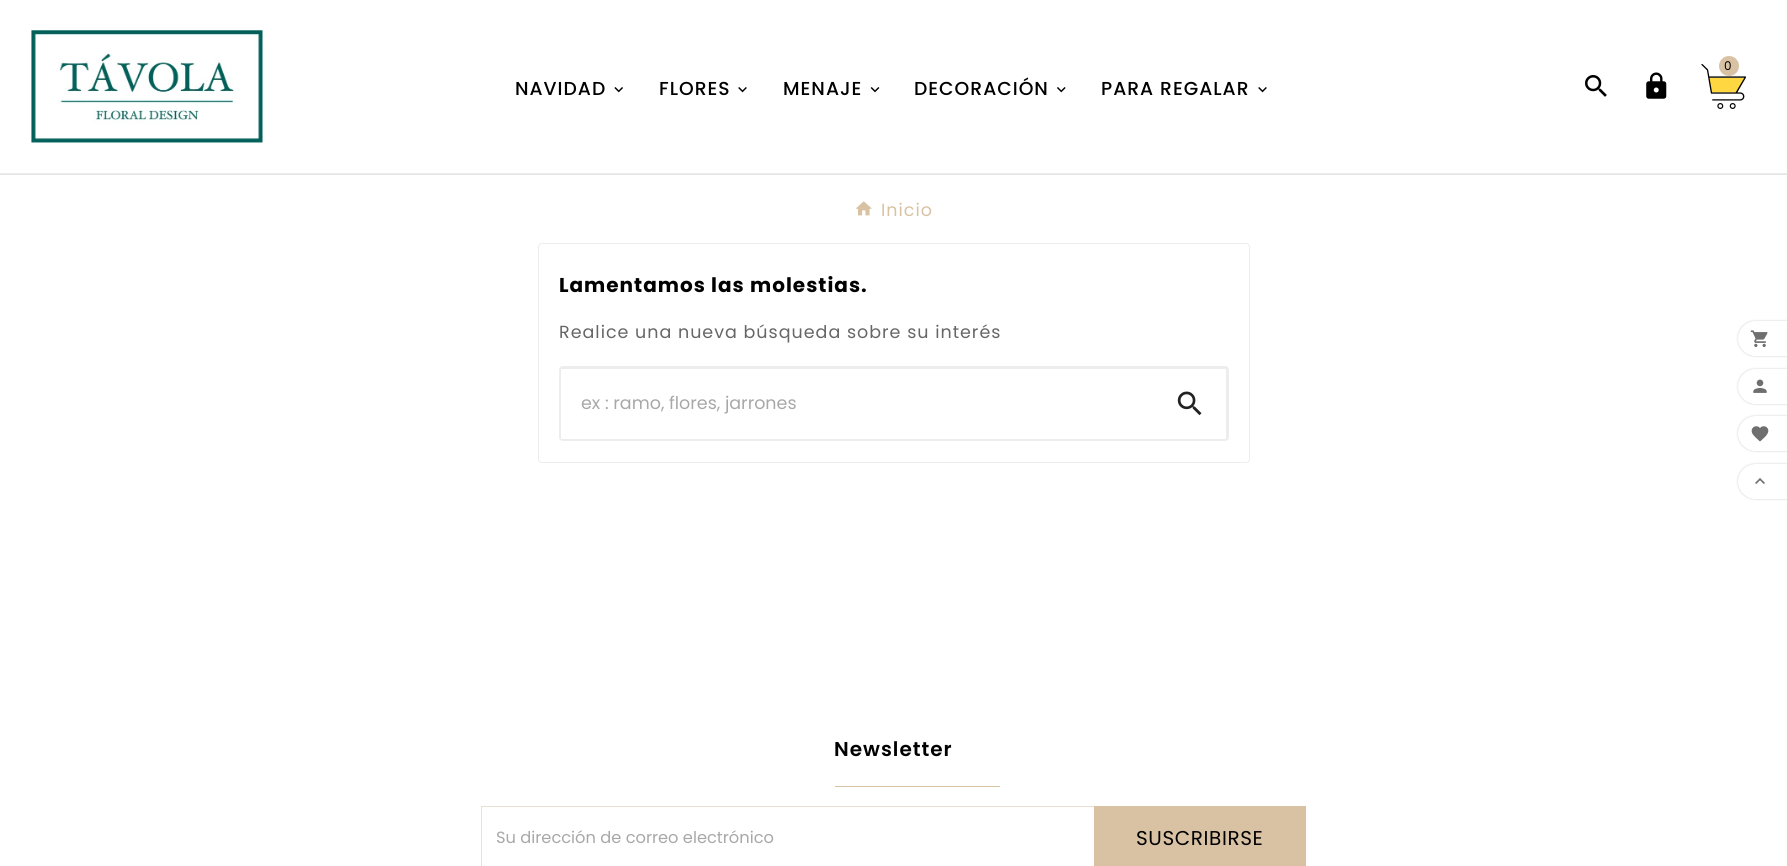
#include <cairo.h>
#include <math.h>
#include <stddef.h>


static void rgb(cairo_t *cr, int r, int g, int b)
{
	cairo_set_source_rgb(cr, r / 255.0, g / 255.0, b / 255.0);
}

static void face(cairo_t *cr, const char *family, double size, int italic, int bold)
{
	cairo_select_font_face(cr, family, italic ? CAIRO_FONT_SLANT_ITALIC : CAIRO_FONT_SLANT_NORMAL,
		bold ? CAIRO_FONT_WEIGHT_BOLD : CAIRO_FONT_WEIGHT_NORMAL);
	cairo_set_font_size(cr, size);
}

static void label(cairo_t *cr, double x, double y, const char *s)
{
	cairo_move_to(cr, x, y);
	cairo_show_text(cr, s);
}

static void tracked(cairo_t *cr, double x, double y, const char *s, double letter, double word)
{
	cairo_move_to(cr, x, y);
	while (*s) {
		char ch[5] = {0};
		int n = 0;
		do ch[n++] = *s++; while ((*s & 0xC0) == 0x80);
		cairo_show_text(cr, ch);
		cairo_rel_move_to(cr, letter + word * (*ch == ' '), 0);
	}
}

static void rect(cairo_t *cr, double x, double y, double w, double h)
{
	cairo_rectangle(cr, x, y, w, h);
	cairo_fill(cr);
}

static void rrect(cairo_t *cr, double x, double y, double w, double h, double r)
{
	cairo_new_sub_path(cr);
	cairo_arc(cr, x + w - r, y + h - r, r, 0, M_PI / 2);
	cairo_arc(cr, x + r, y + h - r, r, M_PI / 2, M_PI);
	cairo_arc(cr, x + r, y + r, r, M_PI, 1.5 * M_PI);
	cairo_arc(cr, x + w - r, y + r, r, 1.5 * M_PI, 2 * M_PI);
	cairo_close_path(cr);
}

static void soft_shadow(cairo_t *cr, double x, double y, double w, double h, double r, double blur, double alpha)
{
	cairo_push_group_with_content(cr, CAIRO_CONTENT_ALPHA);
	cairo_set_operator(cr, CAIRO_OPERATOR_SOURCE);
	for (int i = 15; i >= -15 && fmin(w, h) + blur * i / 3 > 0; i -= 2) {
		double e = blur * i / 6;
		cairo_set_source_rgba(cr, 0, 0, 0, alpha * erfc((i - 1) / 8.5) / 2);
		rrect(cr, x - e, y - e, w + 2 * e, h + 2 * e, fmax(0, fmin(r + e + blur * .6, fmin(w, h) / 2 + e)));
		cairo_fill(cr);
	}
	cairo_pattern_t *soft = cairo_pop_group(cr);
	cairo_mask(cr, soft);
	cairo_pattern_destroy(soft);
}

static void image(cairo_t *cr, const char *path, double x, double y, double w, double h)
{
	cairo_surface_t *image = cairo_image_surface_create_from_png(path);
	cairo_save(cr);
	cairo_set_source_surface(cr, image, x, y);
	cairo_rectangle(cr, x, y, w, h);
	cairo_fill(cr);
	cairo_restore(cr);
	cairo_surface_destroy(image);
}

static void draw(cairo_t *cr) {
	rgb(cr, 255, 255, 255);
	cairo_paint(cr);
	rgb(cr, 229, 229, 229);
	rect(cr, 0, 174, 1787, 1);
	rgb(cr, 237, 237, 237);
	rect(cr, 0, 173, 1787, 1);
	image(cr, "image0.png", 31, 30, 232, 113);
	image(cr, "image1.png", 1701, 64, 45, 45);
	rgb(cr, 217, 194, 163);
	cairo_arc(cr, 1729, 66, 10, 0, 2 * M_PI);
	cairo_fill(cr);
	face(cr, "Poppins", 12, 0, 0);
	rgb(cr, 0, 0, 0);
	tracked(cr, 1724, 70, "0", 1, 0);
	image(cr, "image2.png", 1585, 75, 22, 22);
	image(cr, "image3.png", 1646, 72, 21, 27);
	face(cr, "Poppins Medium", 18.75, 0, 0);
	tracked(cr, 515, 95, "NAVIDAD", 1, 0);
	image(cr, "image4.png", 614, 87, 9, 6);
	tracked(cr, 659, 95, "FLORES", 1, 0);
	image(cr, "image5.png", 738, 87, 9, 6);
	tracked(cr, 783, 95, "MENAJE", 1, 0);
	image(cr, "image6.png", 870, 87, 10, 6);
	tracked(cr, 914, 95, "DECORACIÓN", 1, 0);
	image(cr, "image7.png", 1057, 87, 9, 6);
	tracked(cr, 1101, 95, "PARA REGALAR", 1, 0);
	image(cr, "image5.png", 1258, 87, 9, 6);
	image(cr, "image8.png", 855, 201, 17, 15);
	face(cr, "Poppins", 17.5, 0, 0);
	rgb(cr, 217, 194, 163);
	tracked(cr, 881, 216, "Inicio", 1, 0);
	rrect(cr, 538.5, 243.5, 711, 219, 3.5);
	rgb(cr, 237, 237, 237);
	cairo_set_line_width(cr, 1);
	cairo_stroke(cr);
	face(cr, "Poppins", 20, 0, 1);
	rgb(cr, 0, 0, 0);
	tracked(cr, 559, 292, "Lamentamos las molestias.", 1, 0);
	face(cr, "Poppins", 17.5, 0, 0);
	rgb(cr, 102, 102, 102);
	tracked(cr, 559, 338, "Realice una nueva búsqueda sobre su interés", 1, 0);
	rrect(cr, 560.5, 367.5, 667, 72, 2.5);
	rgb(cr, 237, 237, 237);
	cairo_set_line_width(cr, 3);
	cairo_stroke(cr);
	rgb(cr, 255, 255, 255);
	cairo_new_path(cr);
	cairo_move_to(cr, 562, 369);
	cairo_line_to(cr, 1154, 369);
	cairo_line_to(cr, 1154, 439);
	cairo_line_to(cr, 562, 439);
	cairo_curve_to(cr, 561.5, 439, 561, 438.5, 561, 438);
	cairo_line_to(cr, 561, 370);
	cairo_curve_to(cr, 561, 369.5, 561.5, 369, 562, 369);
	cairo_close_path(cr);
	cairo_fill(cr);
	rgb(cr, 168, 168, 168);
	label(cr, 581, 409, "ex : ramo, flores, jarrones");
	rgb(cr, 255, 255, 255);
	cairo_new_path(cr);
	cairo_move_to(cr, 1154, 369);
	cairo_line_to(cr, 1225, 369);
	cairo_curve_to(cr, 1225.5, 369, 1226, 369.5, 1226, 370);
	cairo_line_to(cr, 1226, 438);
	cairo_curve_to(cr, 1226, 438.5, 1225.5, 439, 1225, 439);
	cairo_line_to(cr, 1154, 439);
	cairo_close_path(cr);
	cairo_fill(cr);
	image(cr, "image9.png", 1177, 391, 25, 25);
	rgb(cr, 0, 0, 0);
	soft_shadow(cr, 1738, 321, 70, 35, 17.5, 1, 0.2);
	rgb(cr, 255, 255, 255);
	cairo_new_path(cr);
	cairo_move_to(cr, 1755.5, 321);
	cairo_line_to(cr, 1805, 321);
	cairo_line_to(cr, 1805, 356);
	cairo_line_to(cr, 1755.5, 356);
	cairo_curve_to(cr, 1746, 356, 1738, 348, 1738, 338.5);
	cairo_curve_to(cr, 1738, 329, 1746, 321, 1755.5, 321);
	cairo_close_path(cr);
	cairo_fill(cr);
	image(cr, "image10.png", 1750, 330, 18, 17);
	rgb(cr, 0, 0, 0);
	soft_shadow(cr, 1738, 369, 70, 35, 17.5, 1, 0.2);
	rgb(cr, 255, 255, 255);
	cairo_new_path(cr);
	cairo_move_to(cr, 1755.5, 369);
	cairo_line_to(cr, 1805, 369);
	cairo_line_to(cr, 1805, 404);
	cairo_line_to(cr, 1755.5, 404);
	cairo_curve_to(cr, 1746, 404, 1738, 396, 1738, 386.5);
	cairo_curve_to(cr, 1738, 377, 1746, 369, 1755.5, 369);
	cairo_close_path(cr);
	cairo_fill(cr);
	image(cr, "image11.png", 1753, 379, 14, 14);
	rgb(cr, 0, 0, 0);
	soft_shadow(cr, 1738, 416, 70, 35, 17.5, 1, 0.2);
	rgb(cr, 255, 255, 255);
	cairo_new_path(cr);
	cairo_move_to(cr, 1755.5, 416);
	cairo_line_to(cr, 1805, 416);
	cairo_line_to(cr, 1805, 451);
	cairo_line_to(cr, 1755.5, 451);
	cairo_curve_to(cr, 1746, 451, 1738, 443, 1738, 433.5);
	cairo_curve_to(cr, 1738, 424, 1746, 416, 1755.5, 416);
	cairo_close_path(cr);
	cairo_fill(cr);
	image(cr, "image12.png", 1751, 426, 18, 16);
	rgb(cr, 0, 0, 0);
	soft_shadow(cr, 1738, 464, 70, 35, 17.5, 1, 0.2);
	rgb(cr, 255, 255, 255);
	cairo_new_path(cr);
	cairo_move_to(cr, 1755.5, 464);
	cairo_line_to(cr, 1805, 464);
	cairo_line_to(cr, 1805, 499);
	cairo_line_to(cr, 1755.5, 499);
	cairo_curve_to(cr, 1746, 499, 1738, 491, 1738, 481.5);
	cairo_curve_to(cr, 1738, 472, 1746, 464, 1755.5, 464);
	cairo_close_path(cr);
	cairo_fill(cr);
	image(cr, "image13.png", 1755, 478, 10, 6);
	face(cr, "Poppins SemiBold", 20, 0, 0);
	rgb(cr, 0, 0, 0);
	tracked(cr, 834, 756, "Newsletter", 1, 0);
	rgb(cr, 217, 194, 163);
	rect(cr, 835, 786, 165, 1);
	cairo_rectangle(cr, 481.5, 806.5, 824, 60);
	rgb(cr, 236, 225, 209);
	cairo_set_line_width(cr, 1);
	cairo_stroke(cr);
	face(cr, "Poppins", 16.25, 0, 0);
	rgb(cr, 168, 168, 168);
	label(cr, 496, 843, "Su dirección de correo electrónico");
	rgb(cr, 217, 194, 163);
	rect(cr, 1094, 806, 212, 60);
	face(cr, "Poppins", 20, 0, 0);
	rgb(cr, 0, 0, 0);
	tracked(cr, 1136, 845, "SUSCRIBIRSE", 0.6, 0);
}

int main(void) {
	cairo_surface_t *surface = cairo_image_surface_create(CAIRO_FORMAT_RGB24, 1787, 866);
	cairo_t *cr = cairo_create(surface);
	cairo_font_options_t *options = cairo_font_options_create();
	cairo_font_options_set_hint_metrics(options, CAIRO_HINT_METRICS_OFF);
	cairo_font_options_set_hint_style(options, CAIRO_HINT_STYLE_NONE);
	cairo_set_font_options(cr, options);
	cairo_set_miter_limit(cr, 4);
	draw(cr);
	cairo_surface_write_to_png(surface, "render.png");
	cairo_font_options_destroy(options);
	cairo_destroy(cr);
	cairo_surface_destroy(surface);
	return 0;
}
